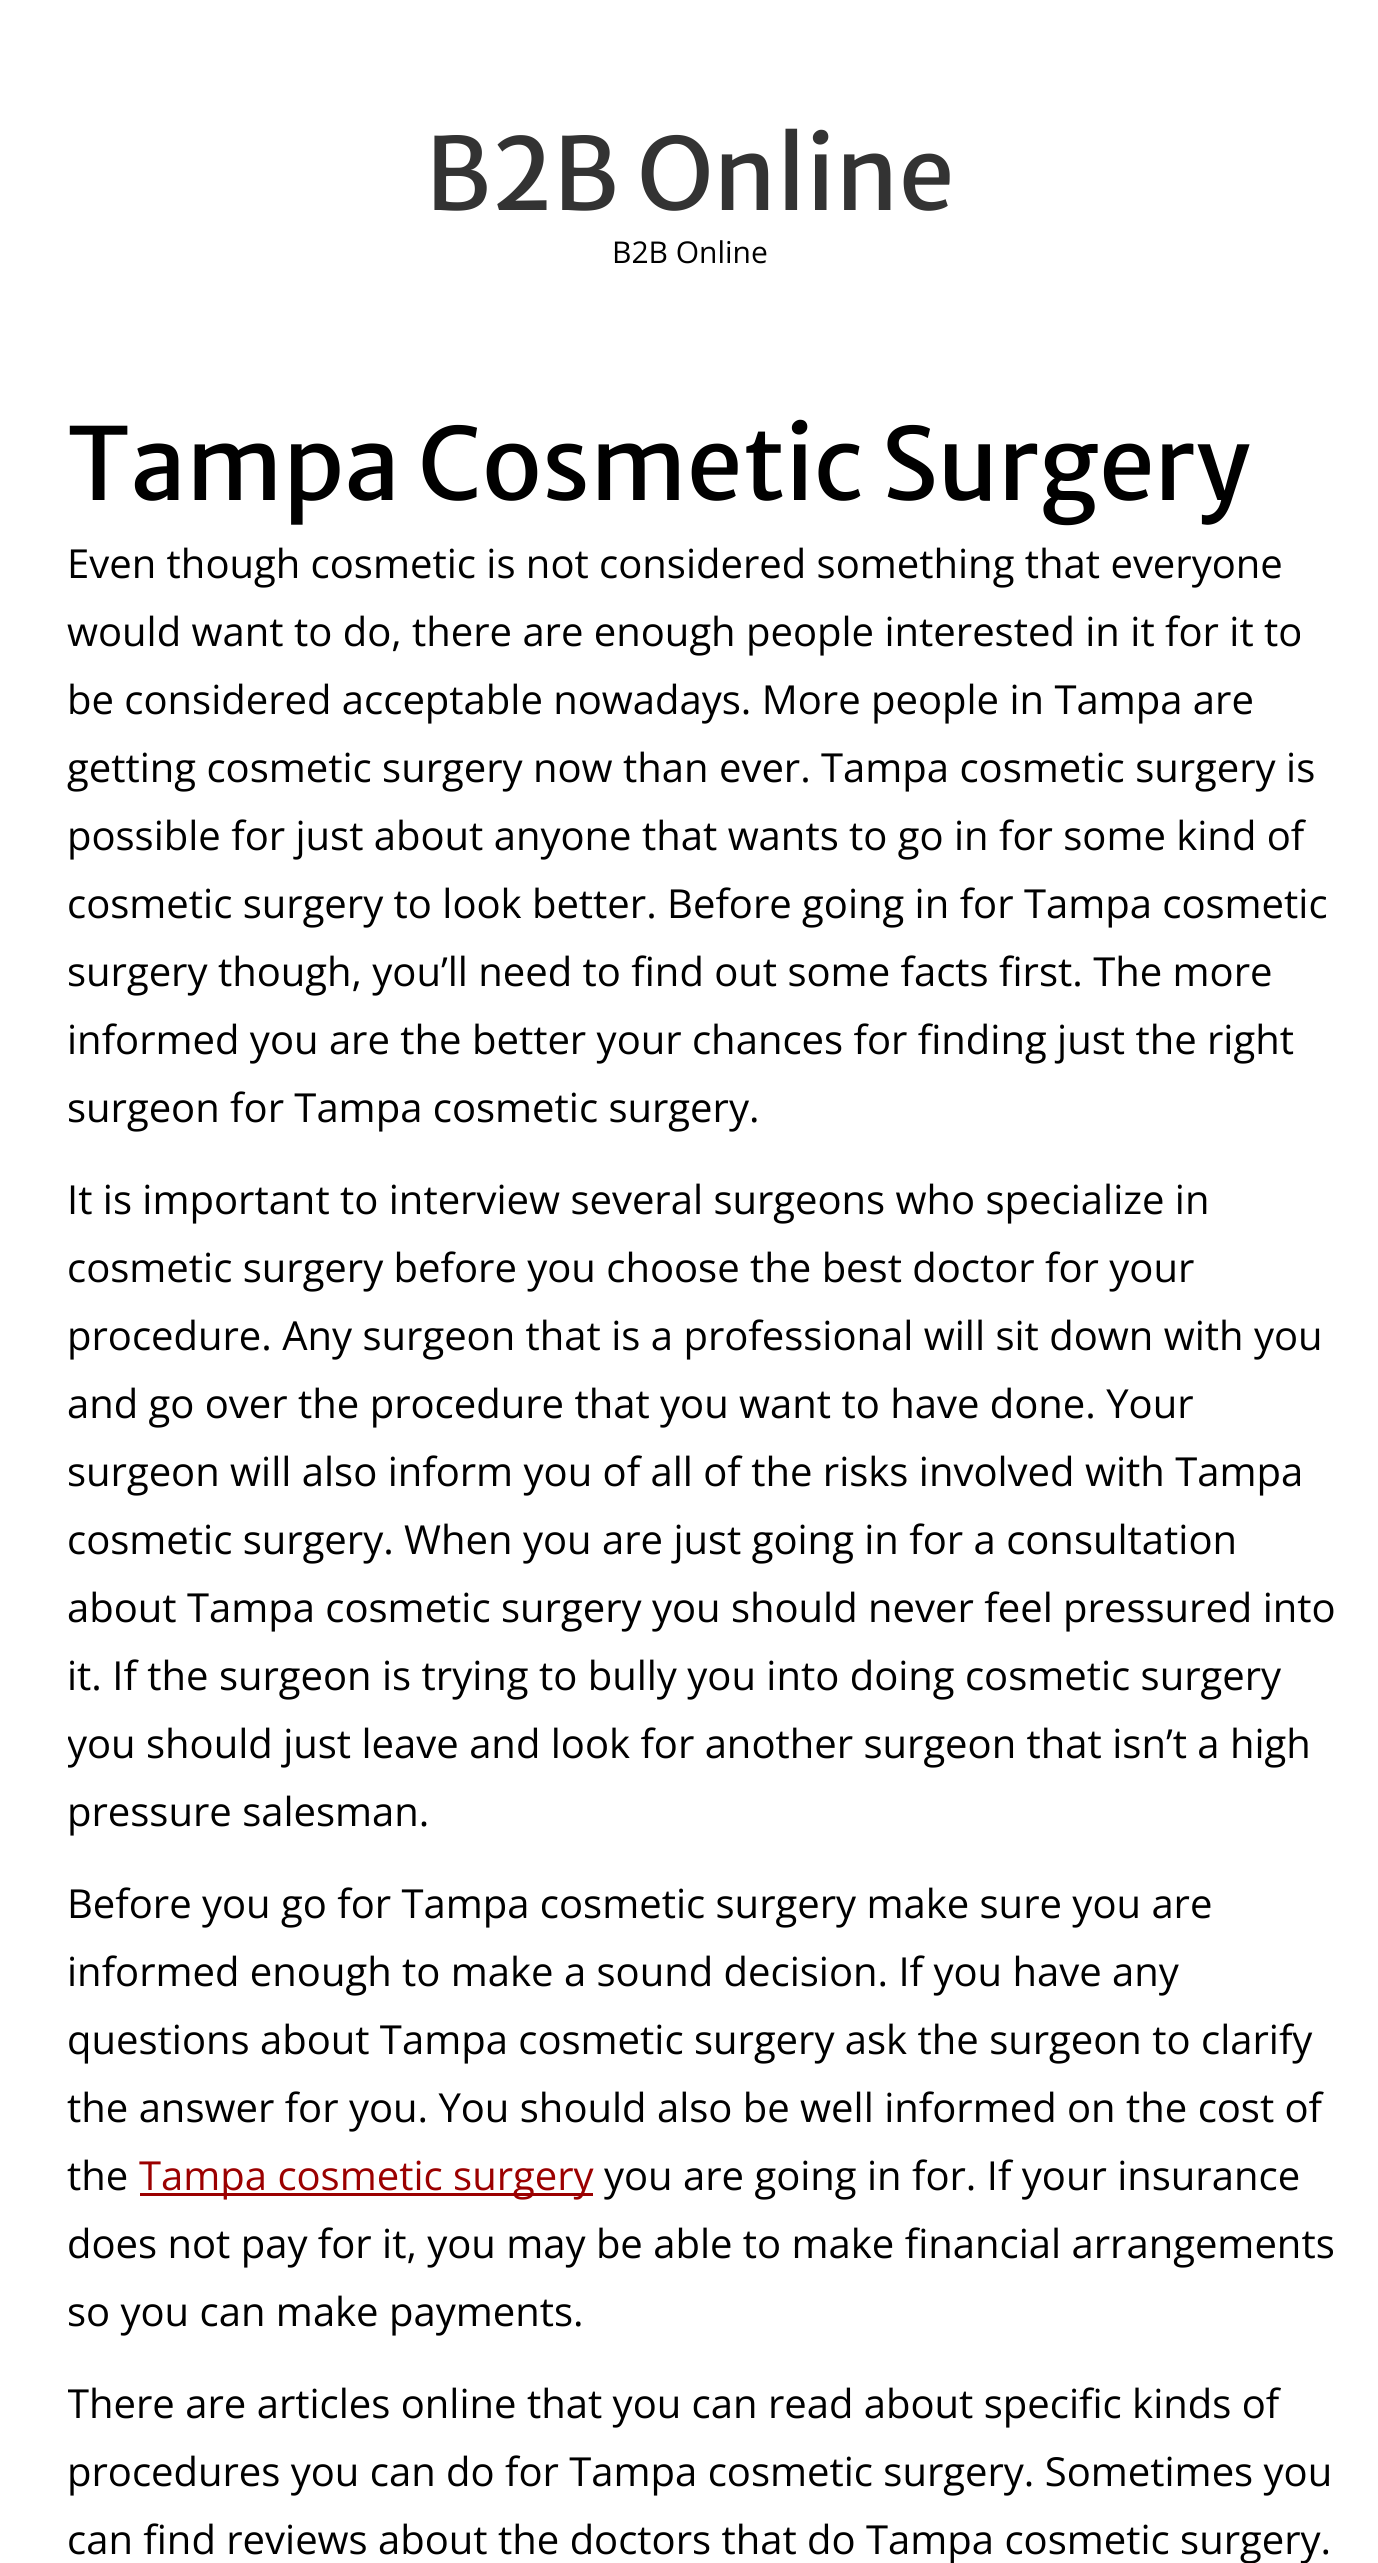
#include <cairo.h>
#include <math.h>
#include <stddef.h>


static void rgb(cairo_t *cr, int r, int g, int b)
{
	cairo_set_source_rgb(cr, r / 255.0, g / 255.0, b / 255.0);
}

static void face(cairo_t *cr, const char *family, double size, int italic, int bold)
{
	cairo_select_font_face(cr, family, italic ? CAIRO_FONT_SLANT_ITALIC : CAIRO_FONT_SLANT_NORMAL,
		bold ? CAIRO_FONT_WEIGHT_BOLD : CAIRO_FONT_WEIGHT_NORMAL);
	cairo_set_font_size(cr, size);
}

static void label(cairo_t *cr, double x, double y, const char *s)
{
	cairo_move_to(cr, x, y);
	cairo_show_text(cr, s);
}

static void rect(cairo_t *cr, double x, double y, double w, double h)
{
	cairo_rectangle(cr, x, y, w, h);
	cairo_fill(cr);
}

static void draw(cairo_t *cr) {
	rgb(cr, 255, 255, 255);
	cairo_paint(cr);
	face(cr, "Merriweather Sans", 100, 0, 0);
	rgb(cr, 51, 51, 51);
	label(cr, 425, 210, "B2B Online");
	face(cr, "Open Sans", 30, 0, 0);
	rgb(cr, 0, 0, 0);
	label(cr, 612, 263, "B2B Online");
	face(cr, "Merriweather Sans", 100, 0, 0);
	label(cr, 67, 500, "Tampa Cosmetic Surgery");
	face(cr, "Open Sans", 40, 0, 0);
	label(cr, 67, 578, "Even though cosmetic is not considered something that everyone");
	label(cr, 67, 646, "would want to do, there are enough people interested in it for it to");
	label(cr, 67, 714, "be considered acceptable nowadays. More people in Tampa are");
	label(cr, 67, 782, "getting cosmetic surgery now than ever. Tampa cosmetic surgery is");
	label(cr, 67, 850, "possible for just about anyone that wants to go in for some kind of");
	label(cr, 67, 918, "cosmetic surgery to look better. Before going in for Tampa cosmetic");
	label(cr, 67, 986, "surgery though, you’ll need to find out some facts first. The more");
	label(cr, 67, 1054, "informed you are the better your chances for finding just the right");
	label(cr, 67, 1122, "surgeon for Tampa cosmetic surgery.");
	label(cr, 67, 1214, "It is important to interview several surgeons who specialize in");
	label(cr, 67, 1282, "cosmetic surgery before you choose the best doctor for your");
	label(cr, 67, 1350, "procedure. Any surgeon that is a professional will sit down with you");
	label(cr, 67, 1418, "and go over the procedure that you want to have done. Your");
	label(cr, 67, 1486, "surgeon will also inform you of all of the risks involved with Tampa");
	label(cr, 67, 1554, "cosmetic surgery. When you are just going in for a consultation");
	label(cr, 67, 1622, "about Tampa cosmetic surgery you should never feel pressured into");
	label(cr, 67, 1690, "it. If the surgeon is trying to bully you into doing cosmetic surgery");
	cairo_save(cr);
	cairo_rectangle(cr, 68, 530, 1272, 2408);
	cairo_clip(cr);
	label(cr, 67, 1758, "you should just leave and look for another surgeon that isn’t a high");
	cairo_restore(cr);
	label(cr, 67, 1826, "pressure salesman.");
	label(cr, 67, 1918, "Before you go for Tampa cosmetic surgery make sure you are");
	label(cr, 67, 1986, "informed enough to make a sound decision. If you have any");
	label(cr, 67, 2054, "questions about Tampa cosmetic surgery ask the surgeon to clarify");
	label(cr, 67, 2122, "the answer for you. You should also be well informed on the cost of");
	label(cr, 67, 2190, "the");
	rgb(cr, 155, 0, 0);
	rect(cr, 140, 2193, 453, 3);
	label(cr, 139, 2190, "Tampa cosmetic surgery");
	rgb(cr, 0, 0, 0);
	label(cr, 604, 2190, "you are going in for. If your insurance");
	label(cr, 67, 2258, "does not pay for it, you may be able to make financial arrangements");
	label(cr, 67, 2326, "so you can make payments.");
	cairo_save(cr);
	cairo_rectangle(cr, 68, 530, 1272, 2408);
	cairo_clip(cr);
	label(cr, 67, 2418, "There are articles online that you can read about specific kinds of");
	cairo_restore(cr);
	label(cr, 67, 2486, "procedures you can do for Tampa cosmetic surgery. Sometimes you");
	label(cr, 67, 2554, "can find reviews about the doctors that do Tampa cosmetic surgery.");
}

int main(void) {
	cairo_surface_t *surface = cairo_image_surface_create(CAIRO_FORMAT_RGB24, 1378, 2563);
	cairo_t *cr = cairo_create(surface);
	cairo_font_options_t *options = cairo_font_options_create();
	cairo_font_options_set_hint_metrics(options, CAIRO_HINT_METRICS_OFF);
	cairo_font_options_set_hint_style(options, CAIRO_HINT_STYLE_NONE);
	cairo_set_font_options(cr, options);
	cairo_set_miter_limit(cr, 4);
	draw(cr);
	cairo_surface_write_to_png(surface, "render.png");
	cairo_font_options_destroy(options);
	cairo_destroy(cr);
	cairo_surface_destroy(surface);
	return 0;
}
